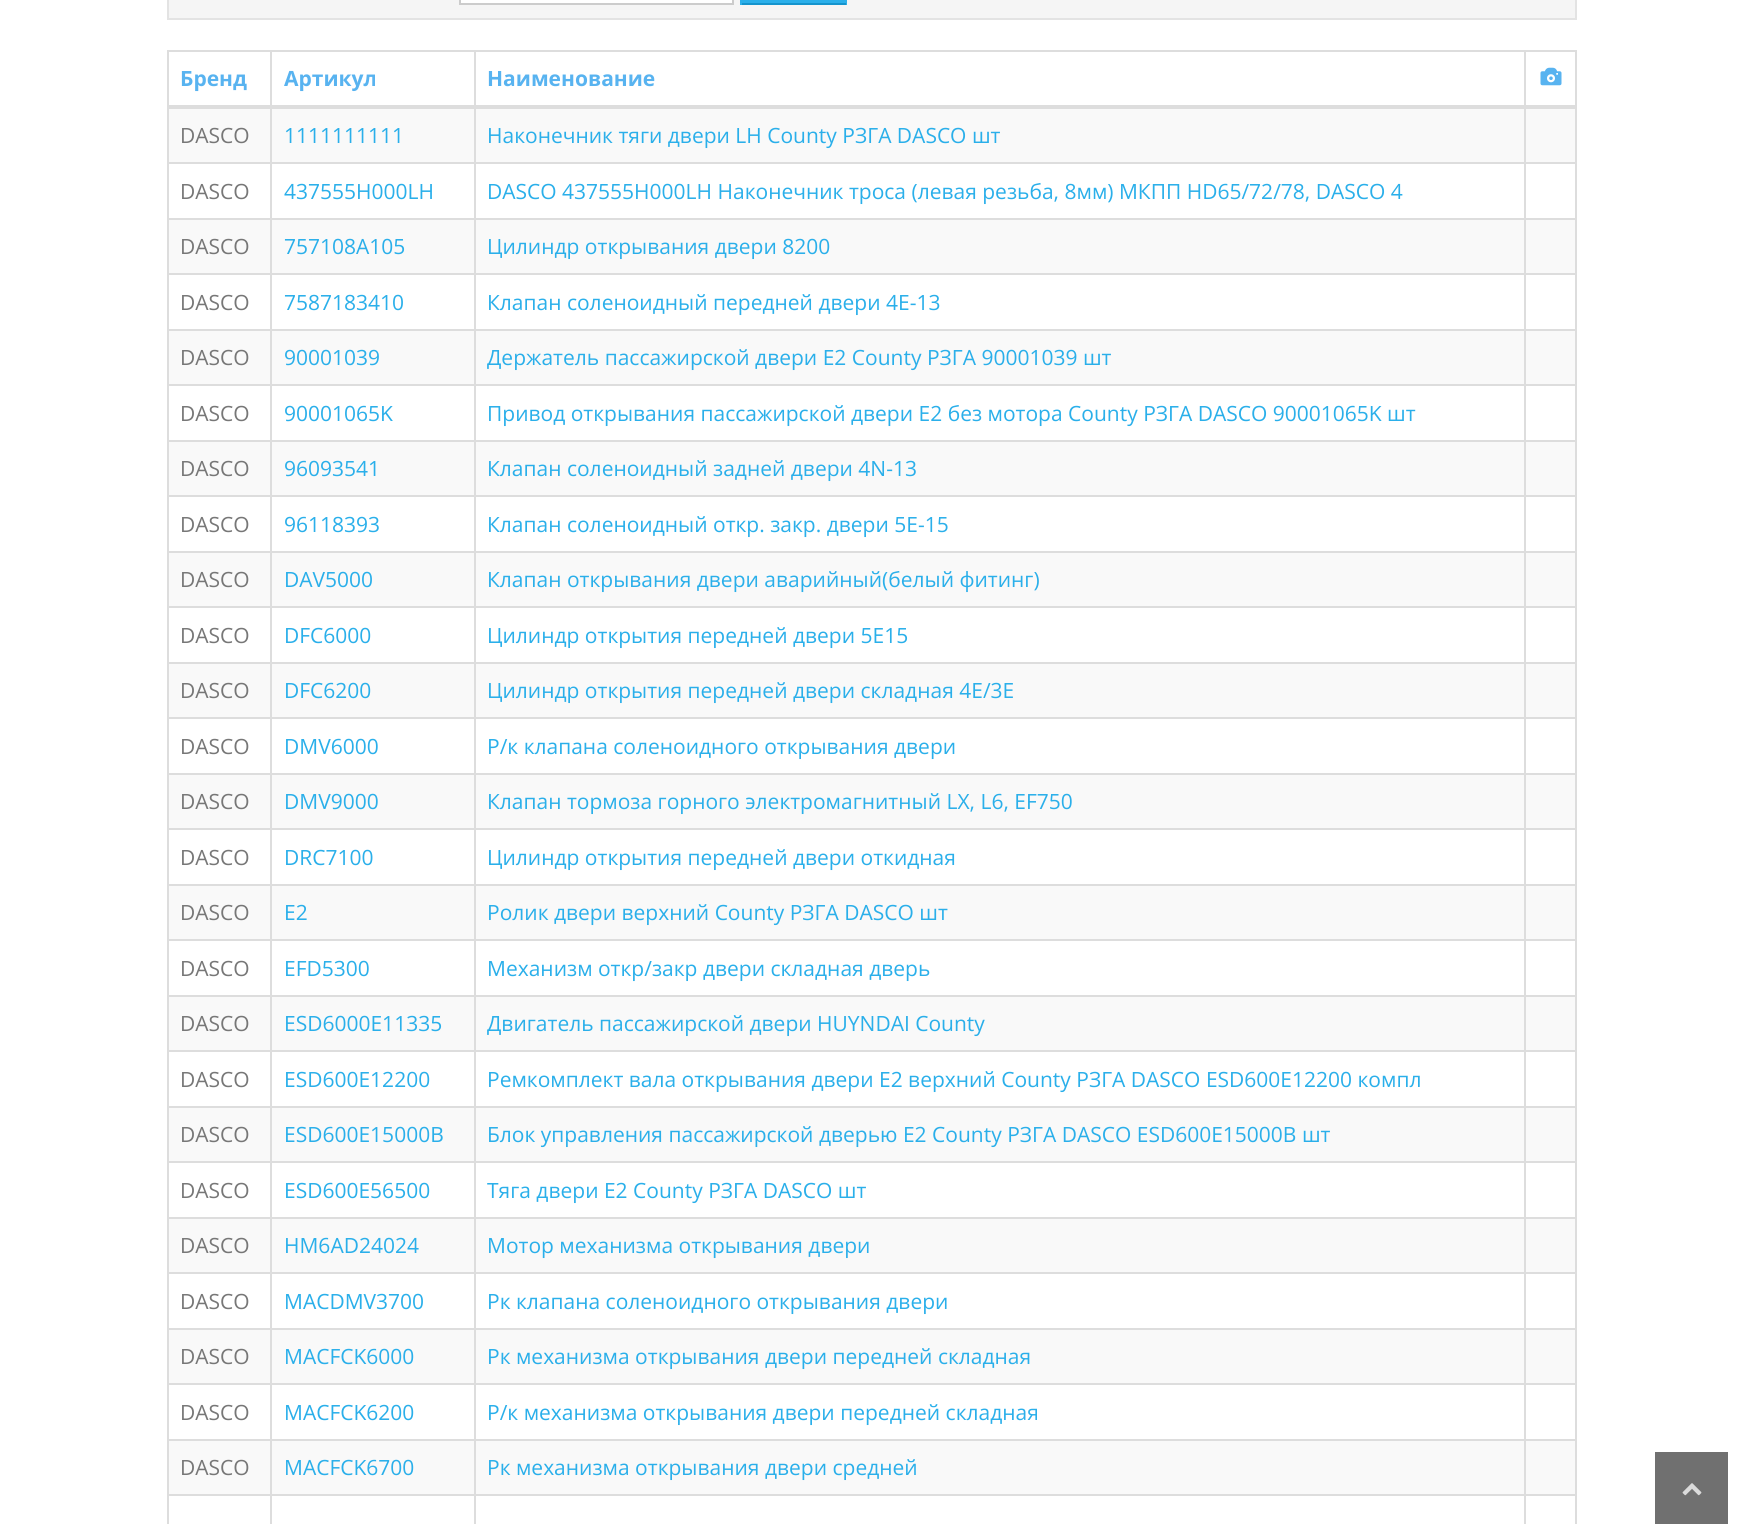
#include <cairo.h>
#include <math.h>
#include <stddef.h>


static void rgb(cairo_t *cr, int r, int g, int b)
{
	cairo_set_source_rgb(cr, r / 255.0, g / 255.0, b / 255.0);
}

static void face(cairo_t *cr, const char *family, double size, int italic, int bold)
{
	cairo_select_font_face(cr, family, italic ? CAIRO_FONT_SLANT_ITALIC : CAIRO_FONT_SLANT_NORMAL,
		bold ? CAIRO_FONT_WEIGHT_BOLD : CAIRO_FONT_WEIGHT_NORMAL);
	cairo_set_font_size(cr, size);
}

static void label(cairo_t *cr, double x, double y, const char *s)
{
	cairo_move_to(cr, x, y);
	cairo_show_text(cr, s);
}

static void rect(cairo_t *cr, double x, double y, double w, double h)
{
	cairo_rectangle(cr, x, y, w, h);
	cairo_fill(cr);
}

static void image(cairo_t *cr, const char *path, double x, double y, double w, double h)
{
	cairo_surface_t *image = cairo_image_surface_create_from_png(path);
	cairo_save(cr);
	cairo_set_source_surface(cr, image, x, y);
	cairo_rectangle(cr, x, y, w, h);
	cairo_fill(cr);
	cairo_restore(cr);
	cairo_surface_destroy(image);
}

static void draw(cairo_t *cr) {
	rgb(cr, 255, 255, 255);
	cairo_paint(cr);
	rgb(cr, 245, 245, 245);
	cairo_rectangle(cr, 168, -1, 1408, 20);
	cairo_fill_preserve(cr);
	rgb(cr, 227, 227, 227);
	cairo_stroke(cr);
	rgb(cr, 255, 255, 255);
	cairo_rectangle(cr, 460, -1, 273, 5);
	cairo_fill_preserve(cr);
	rgb(cr, 204, 204, 204);
	cairo_stroke(cr);
	rgb(cr, 42, 175, 234);
	rect(cr, 740, 0, 106, 3);
	rect(cr, 845, 0, 2, 5);
	rgb(cr, 20, 148, 205);
	rect(cr, 740, 3, 106, 2);
	rgb(cr, 42, 175, 234);
	rect(cr, 740, 0, 2, 5);
	rgb(cr, 221, 221, 221);
	rect(cr, 167, 50, 1410, 2);
	rect(cr, 1575, 50, 2, 1474);
	rect(cr, 167, 50, 2, 1474);
	rgb(cr, 249, 249, 249);
	rect(cr, 169, 109, 1406, 53);
	rgb(cr, 221, 221, 221);
	rect(cr, 1524, 108, 53, 1);
	rect(cr, 1524, 162, 53, 2);
	rect(cr, 1524, 218, 53, 2);
	rgb(cr, 249, 249, 249);
	rect(cr, 169, 220, 1406, 53);
	rgb(cr, 221, 221, 221);
	rect(cr, 1524, 273, 53, 2);
	rect(cr, 1524, 329, 53, 2);
	rgb(cr, 249, 249, 249);
	rect(cr, 169, 331, 1406, 53);
	rgb(cr, 221, 221, 221);
	rect(cr, 1524, 384, 53, 2);
	rect(cr, 1524, 440, 53, 2);
	rgb(cr, 249, 249, 249);
	rect(cr, 169, 442, 1406, 53);
	rgb(cr, 221, 221, 221);
	rect(cr, 1524, 495, 53, 2);
	rect(cr, 1524, 551, 53, 2);
	rgb(cr, 249, 249, 249);
	rect(cr, 169, 553, 1406, 53);
	rgb(cr, 221, 221, 221);
	rect(cr, 1524, 606, 53, 2);
	rect(cr, 1524, 662, 53, 2);
	rgb(cr, 249, 249, 249);
	rect(cr, 169, 664, 1406, 53);
	rgb(cr, 221, 221, 221);
	rect(cr, 1524, 717, 53, 2);
	rect(cr, 1524, 773, 53, 2);
	rgb(cr, 249, 249, 249);
	rect(cr, 169, 775, 1406, 53);
	rgb(cr, 221, 221, 221);
	rect(cr, 1524, 828, 53, 2);
	rect(cr, 1524, 884, 53, 2);
	rgb(cr, 249, 249, 249);
	rect(cr, 169, 886, 1406, 53);
	rgb(cr, 221, 221, 221);
	rect(cr, 1524, 939, 53, 2);
	rect(cr, 1524, 995, 53, 2);
	rgb(cr, 249, 249, 249);
	rect(cr, 169, 997, 1406, 53);
	rgb(cr, 221, 221, 221);
	rect(cr, 1524, 1050, 53, 2);
	rect(cr, 1524, 1106, 53, 2);
	rgb(cr, 249, 249, 249);
	rect(cr, 169, 1108, 1406, 53);
	rgb(cr, 221, 221, 221);
	rect(cr, 1524, 1161, 53, 2);
	rect(cr, 1524, 1217, 53, 2);
	rgb(cr, 249, 249, 249);
	rect(cr, 169, 1219, 1406, 53);
	rgb(cr, 221, 221, 221);
	rect(cr, 1524, 1272, 53, 2);
	rect(cr, 1524, 1328, 53, 2);
	rgb(cr, 249, 249, 249);
	rect(cr, 169, 1330, 1406, 53);
	rgb(cr, 221, 221, 221);
	rect(cr, 1524, 1383, 53, 2);
	rect(cr, 1524, 1439, 53, 2);
	rgb(cr, 249, 249, 249);
	rect(cr, 169, 1441, 1406, 53);
	rgb(cr, 221, 221, 221);
	rect(cr, 1524, 1494, 53, 2);
	rect(cr, 1524, 1494, 2, 30);
	rect(cr, 474, 1494, 1052, 2);
	rect(cr, 1524, 1439, 2, 57);
	rect(cr, 474, 1439, 1052, 2);
	rect(cr, 1524, 1383, 2, 57);
	rect(cr, 474, 1383, 1052, 2);
	rect(cr, 1524, 1328, 2, 57);
	rect(cr, 474, 1328, 1052, 2);
	rect(cr, 1524, 1272, 2, 57);
	rect(cr, 474, 1272, 1052, 2);
	rect(cr, 1524, 1217, 2, 57);
	rect(cr, 474, 1217, 1052, 2);
	rect(cr, 1524, 1161, 2, 57);
	rect(cr, 474, 1161, 1052, 2);
	rect(cr, 1524, 1106, 2, 57);
	rect(cr, 474, 1106, 1052, 2);
	rect(cr, 1524, 1050, 2, 57);
	rect(cr, 474, 1050, 1052, 2);
	rect(cr, 1524, 995, 2, 57);
	rect(cr, 474, 995, 1052, 2);
	rect(cr, 1524, 939, 2, 57);
	rect(cr, 474, 939, 1052, 2);
	rect(cr, 1524, 884, 2, 57);
	rect(cr, 474, 884, 1052, 2);
	rect(cr, 1524, 828, 2, 57);
	rect(cr, 474, 828, 1052, 2);
	rect(cr, 1524, 773, 2, 57);
	rect(cr, 474, 773, 1052, 2);
	rect(cr, 1524, 717, 2, 57);
	rect(cr, 474, 717, 1052, 2);
	rect(cr, 1524, 662, 2, 57);
	rect(cr, 474, 662, 1052, 2);
	rect(cr, 1524, 606, 2, 57);
	rect(cr, 474, 606, 1052, 2);
	rect(cr, 1524, 551, 2, 57);
	rect(cr, 474, 551, 1052, 2);
	rect(cr, 1524, 495, 2, 57);
	rect(cr, 474, 495, 1052, 2);
	rect(cr, 1524, 440, 2, 57);
	rect(cr, 474, 440, 1052, 2);
	rect(cr, 1524, 384, 2, 57);
	rect(cr, 474, 384, 1052, 2);
	rect(cr, 1524, 329, 2, 57);
	rect(cr, 474, 329, 1052, 2);
	rect(cr, 1524, 273, 2, 57);
	rect(cr, 474, 273, 1052, 2);
	rect(cr, 1524, 218, 2, 57);
	rect(cr, 474, 218, 1052, 2);
	rect(cr, 1524, 162, 2, 57);
	rect(cr, 474, 162, 1052, 2);
	rect(cr, 1524, 50, 2, 114);
	rect(cr, 474, 108, 1052, 1);
	rect(cr, 474, 1494, 2, 30);
	rect(cr, 270, 1494, 206, 2);
	rect(cr, 474, 1439, 2, 57);
	rect(cr, 270, 1439, 206, 2);
	rect(cr, 474, 1383, 2, 57);
	rect(cr, 270, 1383, 206, 2);
	rect(cr, 474, 1328, 2, 57);
	rect(cr, 270, 1328, 206, 2);
	rect(cr, 474, 1272, 2, 57);
	rect(cr, 270, 1272, 206, 2);
	rect(cr, 474, 1217, 2, 57);
	rect(cr, 270, 1217, 206, 2);
	rect(cr, 474, 1161, 2, 57);
	rect(cr, 270, 1161, 206, 2);
	rect(cr, 474, 1106, 2, 57);
	rect(cr, 270, 1106, 206, 2);
	rect(cr, 474, 1050, 2, 57);
	rect(cr, 270, 1050, 206, 2);
	rect(cr, 474, 995, 2, 57);
	rect(cr, 270, 995, 206, 2);
	rect(cr, 474, 939, 2, 57);
	rect(cr, 270, 939, 206, 2);
	rect(cr, 474, 884, 2, 57);
	rect(cr, 270, 884, 206, 2);
	rect(cr, 474, 828, 2, 57);
	rect(cr, 270, 828, 206, 2);
	rect(cr, 474, 773, 2, 57);
	rect(cr, 270, 773, 206, 2);
	rect(cr, 474, 717, 2, 57);
	rect(cr, 270, 717, 206, 2);
	rect(cr, 474, 662, 2, 57);
	rect(cr, 270, 662, 206, 2);
	rect(cr, 474, 606, 2, 57);
	rect(cr, 270, 606, 206, 2);
	rect(cr, 474, 551, 2, 57);
	rect(cr, 270, 551, 206, 2);
	rect(cr, 474, 495, 2, 57);
	rect(cr, 270, 495, 206, 2);
	rect(cr, 474, 440, 2, 57);
	rect(cr, 270, 440, 206, 2);
	rect(cr, 474, 384, 2, 57);
	rect(cr, 270, 384, 206, 2);
	rect(cr, 474, 329, 2, 57);
	rect(cr, 270, 329, 206, 2);
	rect(cr, 474, 273, 2, 57);
	rect(cr, 270, 273, 206, 2);
	rect(cr, 474, 218, 2, 57);
	rect(cr, 270, 218, 206, 2);
	rect(cr, 474, 162, 2, 57);
	rect(cr, 270, 162, 206, 2);
	rect(cr, 474, 50, 2, 114);
	rect(cr, 270, 108, 206, 1);
	rect(cr, 270, 1494, 2, 30);
	rect(cr, 167, 1494, 105, 2);
	rect(cr, 270, 1439, 2, 57);
	rect(cr, 167, 1439, 105, 2);
	rect(cr, 270, 1383, 2, 57);
	rect(cr, 167, 1383, 105, 2);
	rect(cr, 270, 1328, 2, 57);
	rect(cr, 167, 1328, 105, 2);
	rect(cr, 270, 1272, 2, 57);
	rect(cr, 167, 1272, 105, 2);
	rect(cr, 270, 1217, 2, 57);
	rect(cr, 167, 1217, 105, 2);
	rect(cr, 270, 1161, 2, 57);
	rect(cr, 167, 1161, 105, 2);
	rect(cr, 270, 1106, 2, 57);
	rect(cr, 167, 1106, 105, 2);
	rect(cr, 270, 1050, 2, 57);
	rect(cr, 167, 1050, 105, 2);
	rect(cr, 270, 995, 2, 57);
	rect(cr, 167, 995, 105, 2);
	rect(cr, 270, 939, 2, 57);
	rect(cr, 167, 939, 105, 2);
	rect(cr, 270, 884, 2, 57);
	rect(cr, 167, 884, 105, 2);
	rect(cr, 270, 828, 2, 57);
	rect(cr, 167, 828, 105, 2);
	rect(cr, 270, 773, 2, 57);
	rect(cr, 167, 773, 105, 2);
	rect(cr, 270, 717, 2, 57);
	rect(cr, 167, 717, 105, 2);
	rect(cr, 270, 662, 2, 57);
	rect(cr, 167, 662, 105, 2);
	rect(cr, 270, 606, 2, 57);
	rect(cr, 167, 606, 105, 2);
	rect(cr, 270, 551, 2, 57);
	rect(cr, 167, 551, 105, 2);
	rect(cr, 270, 495, 2, 57);
	rect(cr, 167, 495, 105, 2);
	rect(cr, 270, 440, 2, 57);
	rect(cr, 167, 440, 105, 2);
	rect(cr, 270, 384, 2, 57);
	rect(cr, 167, 384, 105, 2);
	rect(cr, 270, 329, 2, 57);
	rect(cr, 167, 329, 105, 2);
	rect(cr, 270, 273, 2, 57);
	rect(cr, 167, 273, 105, 2);
	rect(cr, 270, 218, 2, 57);
	rect(cr, 167, 218, 105, 2);
	rect(cr, 270, 162, 2, 57);
	rect(cr, 167, 162, 105, 2);
	rect(cr, 270, 50, 2, 114);
	rect(cr, 167, 105, 1410, 3);
	image(cr, "image0.png", 1540, 67, 22, 19);
	face(cr, "Open Sans", 21, 0, 1);
	rgb(cr, 88, 179, 240);
	label(cr, 180, 86, "Бренд");
	label(cr, 284, 86, "Артикул");
	label(cr, 487, 86, "Наименование");
	rgb(cr, 221, 221, 221);
	rect(cr, 167, 108, 105, 1);
	face(cr, "Open Sans", 21, 0, 0);
	rgb(cr, 119, 119, 119);
	label(cr, 180, 143, "DASCO");
	rgb(cr, 42, 175, 234);
	label(cr, 284, 143, "1111111111");
	label(cr, 487, 143, "Наконечник тяги двери LH County РЗГА DASCO шт");
	rgb(cr, 119, 119, 119);
	label(cr, 180, 199, "DASCO");
	rgb(cr, 42, 175, 234);
	label(cr, 284, 199, "437555H000LH");
	label(cr, 487, 199, "DASCO 437555H000LH Наконечник троса (левая резьба, 8мм) МКПП HD65/72/78, DASCO 4");
	rgb(cr, 119, 119, 119);
	label(cr, 180, 254, "DASCO");
	rgb(cr, 42, 175, 234);
	label(cr, 284, 254, "757108A105");
	label(cr, 487, 254, "Цилиндр открывания двери 8200");
	rgb(cr, 119, 119, 119);
	label(cr, 180, 310, "DASCO");
	rgb(cr, 42, 175, 234);
	label(cr, 284, 310, "7587183410");
	label(cr, 487, 310, "Клапан соленоидный передней двери 4E-13");
	rgb(cr, 119, 119, 119);
	label(cr, 180, 365, "DASCO");
	rgb(cr, 42, 175, 234);
	label(cr, 284, 365, "90001039");
	label(cr, 487, 365, "Держатель пассажирской двери E2 County РЗГА 90001039 шт");
	rgb(cr, 119, 119, 119);
	label(cr, 180, 421, "DASCO");
	rgb(cr, 42, 175, 234);
	label(cr, 284, 421, "90001065K");
	label(cr, 487, 421, "Привод открывания пассажирской двери Е2 без мотора County РЗГА DASCO 90001065K шт");
	rgb(cr, 119, 119, 119);
	label(cr, 180, 476, "DASCO");
	rgb(cr, 42, 175, 234);
	label(cr, 284, 476, "96093541");
	label(cr, 487, 476, "Клапан соленоидный задней двери 4N-13");
	rgb(cr, 119, 119, 119);
	label(cr, 180, 532, "DASCO");
	rgb(cr, 42, 175, 234);
	label(cr, 284, 532, "96118393");
	label(cr, 487, 532, "Клапан соленоидный откр. закр. двери 5E-15");
	rgb(cr, 119, 119, 119);
	label(cr, 180, 587, "DASCO");
	rgb(cr, 42, 175, 234);
	label(cr, 284, 587, "DAV5000");
	label(cr, 487, 587, "Клапан открывания двери аварийный(белый фитинг)");
	rgb(cr, 119, 119, 119);
	label(cr, 180, 643, "DASCO");
	rgb(cr, 42, 175, 234);
	label(cr, 284, 643, "DFC6000");
	label(cr, 487, 643, "Цилиндр открытия передней двери 5E15");
	rgb(cr, 119, 119, 119);
	label(cr, 180, 698, "DASCO");
	rgb(cr, 42, 175, 234);
	label(cr, 284, 698, "DFC6200");
	label(cr, 487, 698, "Цилиндр открытия передней двери складная 4E/3E");
	rgb(cr, 119, 119, 119);
	label(cr, 180, 754, "DASCO");
	rgb(cr, 42, 175, 234);
	label(cr, 284, 754, "DMV6000");
	label(cr, 487, 754, "Р/к клапана соленоидного открывания двери");
	rgb(cr, 119, 119, 119);
	label(cr, 180, 809, "DASCO");
	rgb(cr, 42, 175, 234);
	label(cr, 284, 809, "DMV9000");
	label(cr, 487, 809, "Клапан тормоза горного электромагнитный LX, L6, EF750");
	rgb(cr, 119, 119, 119);
	label(cr, 180, 865, "DASCO");
	rgb(cr, 42, 175, 234);
	label(cr, 284, 865, "DRC7100");
	label(cr, 487, 865, "Цилиндр открытия передней двери откидная");
	rgb(cr, 119, 119, 119);
	label(cr, 180, 920, "DASCO");
	rgb(cr, 42, 175, 234);
	label(cr, 284, 920, "E2");
	label(cr, 487, 920, "Ролик двери верхний County РЗГА DASCO шт");
	rgb(cr, 119, 119, 119);
	label(cr, 180, 976, "DASCO");
	rgb(cr, 42, 175, 234);
	label(cr, 284, 976, "EFD5300");
	label(cr, 487, 976, "Механизм откр/закр двери складная дверь");
	rgb(cr, 119, 119, 119);
	label(cr, 180, 1031, "DASCO");
	rgb(cr, 42, 175, 234);
	label(cr, 284, 1031, "ESD6000E11335");
	label(cr, 487, 1031, "Двигатель пассажирской двери HUYNDAI County");
	rgb(cr, 119, 119, 119);
	label(cr, 180, 1087, "DASCO");
	rgb(cr, 42, 175, 234);
	label(cr, 284, 1087, "ESD600E12200");
	label(cr, 487, 1087, "Ремкомплект вала открывания двери Е2 верхний County РЗГА DASCO ESD600E12200 компл");
	rgb(cr, 119, 119, 119);
	label(cr, 180, 1142, "DASCO");
	rgb(cr, 42, 175, 234);
	label(cr, 284, 1142, "ESD600E15000B");
	label(cr, 487, 1142, "Блок управления пассажирской дверью E2 County РЗГА DASCO ESD600E15000B шт");
	rgb(cr, 119, 119, 119);
	label(cr, 180, 1198, "DASCO");
	rgb(cr, 42, 175, 234);
	label(cr, 284, 1198, "ESD600E56500");
	label(cr, 487, 1198, "Тяга двери Е2 County РЗГА DASCO шт");
	rgb(cr, 119, 119, 119);
	label(cr, 180, 1253, "DASCO");
	rgb(cr, 42, 175, 234);
	label(cr, 284, 1253, "HM6AD24024");
	label(cr, 487, 1253, "Мотор механизма открывания двери");
	rgb(cr, 119, 119, 119);
	label(cr, 180, 1309, "DASCO");
	rgb(cr, 42, 175, 234);
	label(cr, 284, 1309, "MACDMV3700");
	label(cr, 487, 1309, "Рк клапана соленоидного открывания двери");
	rgb(cr, 119, 119, 119);
	label(cr, 180, 1364, "DASCO");
	rgb(cr, 42, 175, 234);
	label(cr, 284, 1364, "MACFCK6000");
	label(cr, 487, 1364, "Рк механизма открывания двери передней складная");
	rgb(cr, 119, 119, 119);
	label(cr, 180, 1420, "DASCO");
	rgb(cr, 42, 175, 234);
	label(cr, 284, 1420, "MACFCK6200");
	label(cr, 487, 1420, "Р/к механизма открывания двери передней складная");
	rgb(cr, 119, 119, 119);
	label(cr, 180, 1475, "DASCO");
	rgb(cr, 42, 175, 234);
	label(cr, 284, 1475, "MACFCK6700");
	label(cr, 487, 1475, "Рк механизма открывания двери средней");
	rgb(cr, 112, 112, 112);
	rect(cr, 1655, 1452, 73, 72);
	image(cr, "image1.png", 1682, 1483, 20, 13);
}

int main(void) {
	cairo_surface_t *surface = cairo_image_surface_create(CAIRO_FORMAT_RGB24, 1742, 1524);
	cairo_t *cr = cairo_create(surface);
	cairo_font_options_t *options = cairo_font_options_create();
	cairo_font_options_set_hint_metrics(options, CAIRO_HINT_METRICS_OFF);
	cairo_font_options_set_hint_style(options, CAIRO_HINT_STYLE_NONE);
	cairo_set_font_options(cr, options);
	cairo_set_miter_limit(cr, 4);
	draw(cr);
	cairo_surface_write_to_png(surface, "render.png");
	cairo_font_options_destroy(options);
	cairo_destroy(cr);
	cairo_surface_destroy(surface);
	return 0;
}
